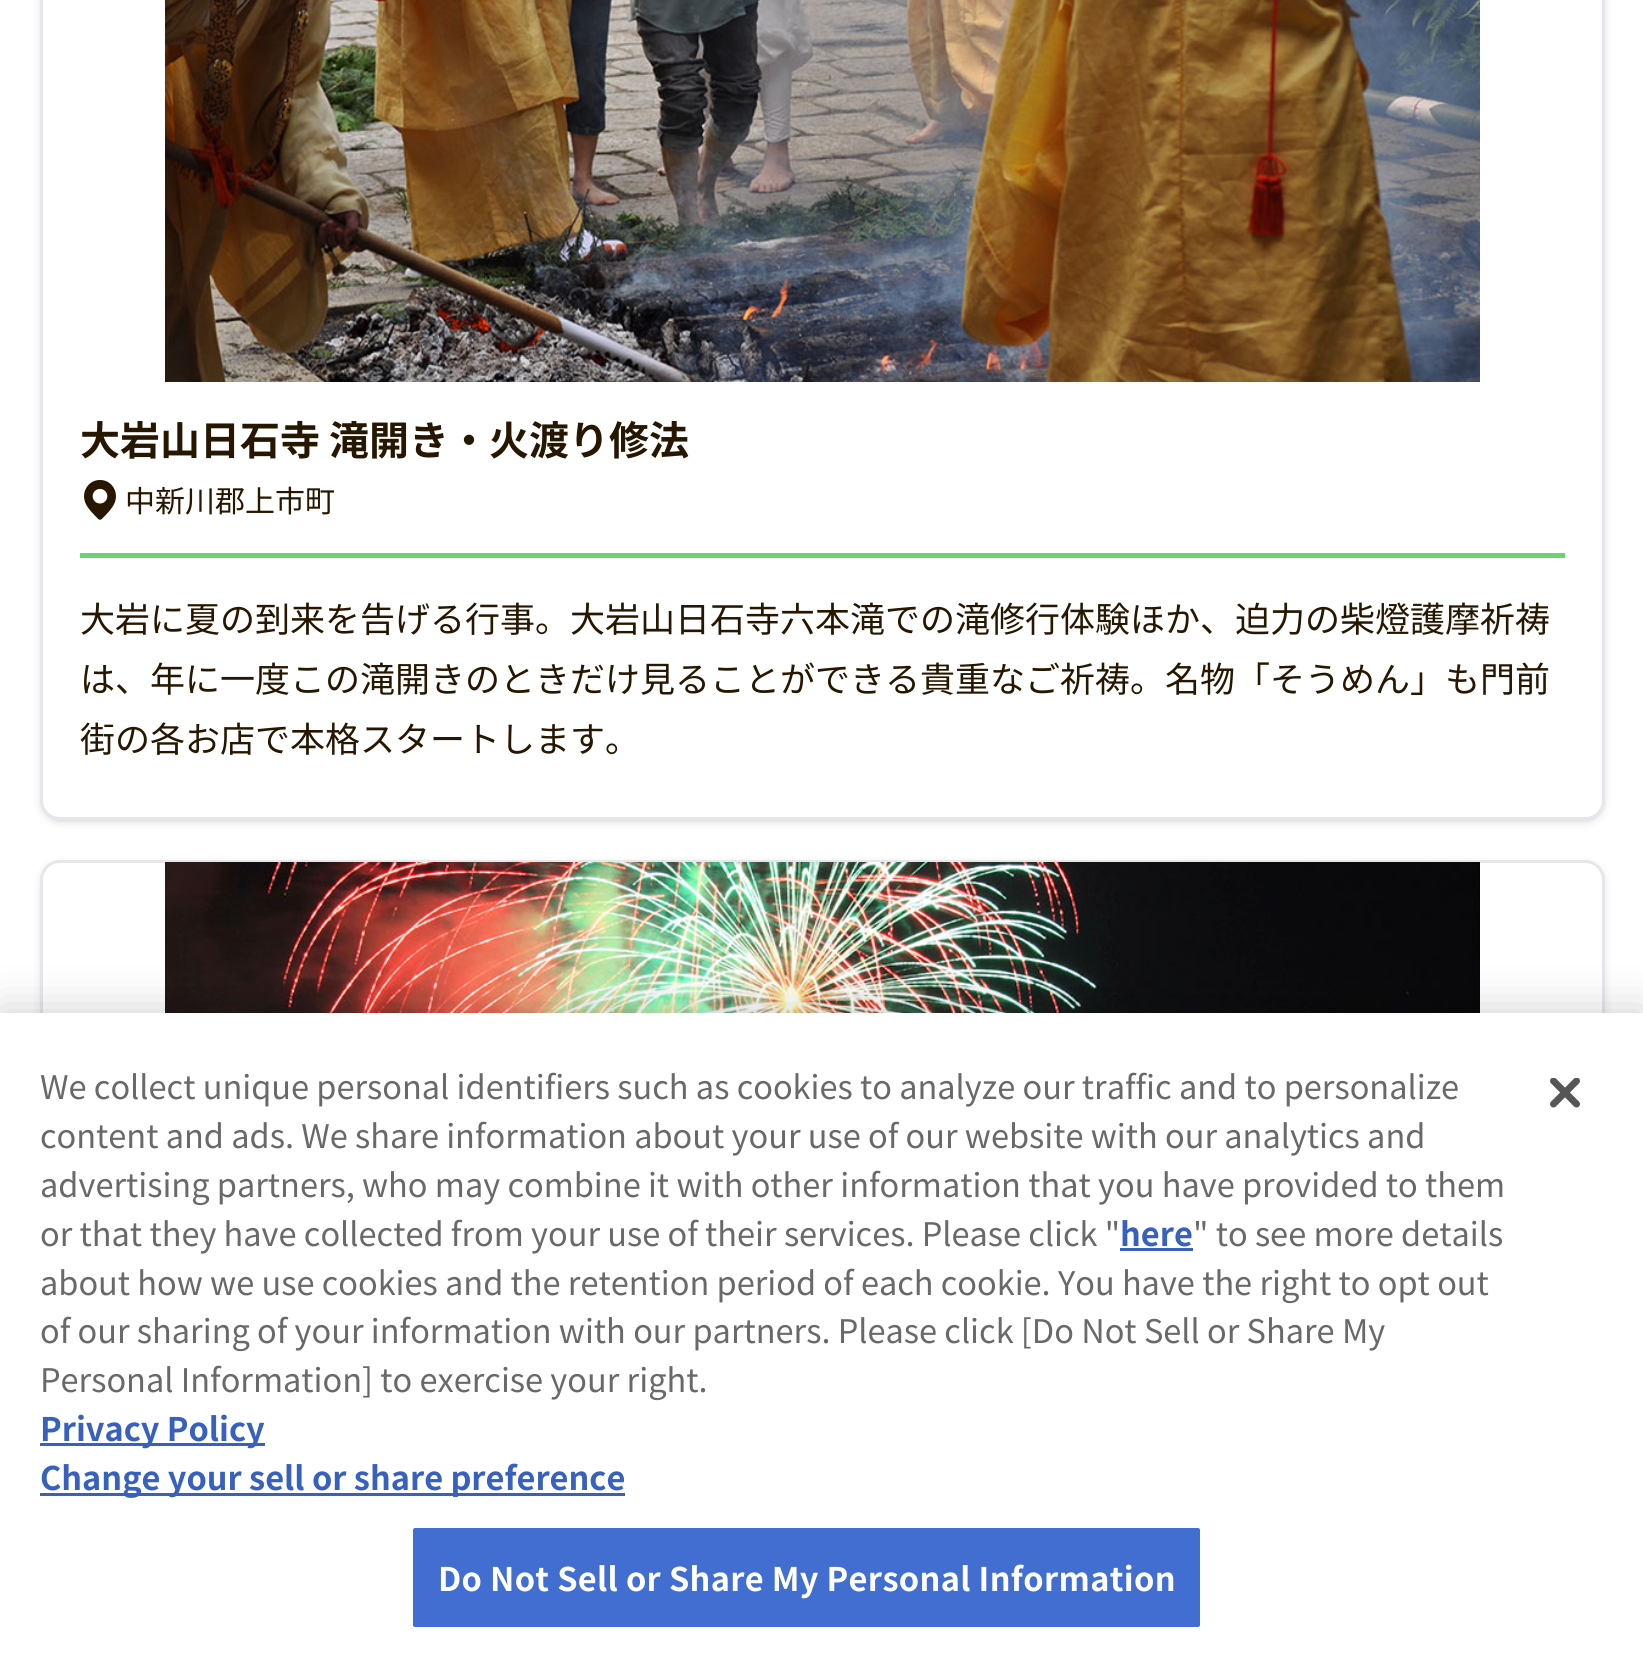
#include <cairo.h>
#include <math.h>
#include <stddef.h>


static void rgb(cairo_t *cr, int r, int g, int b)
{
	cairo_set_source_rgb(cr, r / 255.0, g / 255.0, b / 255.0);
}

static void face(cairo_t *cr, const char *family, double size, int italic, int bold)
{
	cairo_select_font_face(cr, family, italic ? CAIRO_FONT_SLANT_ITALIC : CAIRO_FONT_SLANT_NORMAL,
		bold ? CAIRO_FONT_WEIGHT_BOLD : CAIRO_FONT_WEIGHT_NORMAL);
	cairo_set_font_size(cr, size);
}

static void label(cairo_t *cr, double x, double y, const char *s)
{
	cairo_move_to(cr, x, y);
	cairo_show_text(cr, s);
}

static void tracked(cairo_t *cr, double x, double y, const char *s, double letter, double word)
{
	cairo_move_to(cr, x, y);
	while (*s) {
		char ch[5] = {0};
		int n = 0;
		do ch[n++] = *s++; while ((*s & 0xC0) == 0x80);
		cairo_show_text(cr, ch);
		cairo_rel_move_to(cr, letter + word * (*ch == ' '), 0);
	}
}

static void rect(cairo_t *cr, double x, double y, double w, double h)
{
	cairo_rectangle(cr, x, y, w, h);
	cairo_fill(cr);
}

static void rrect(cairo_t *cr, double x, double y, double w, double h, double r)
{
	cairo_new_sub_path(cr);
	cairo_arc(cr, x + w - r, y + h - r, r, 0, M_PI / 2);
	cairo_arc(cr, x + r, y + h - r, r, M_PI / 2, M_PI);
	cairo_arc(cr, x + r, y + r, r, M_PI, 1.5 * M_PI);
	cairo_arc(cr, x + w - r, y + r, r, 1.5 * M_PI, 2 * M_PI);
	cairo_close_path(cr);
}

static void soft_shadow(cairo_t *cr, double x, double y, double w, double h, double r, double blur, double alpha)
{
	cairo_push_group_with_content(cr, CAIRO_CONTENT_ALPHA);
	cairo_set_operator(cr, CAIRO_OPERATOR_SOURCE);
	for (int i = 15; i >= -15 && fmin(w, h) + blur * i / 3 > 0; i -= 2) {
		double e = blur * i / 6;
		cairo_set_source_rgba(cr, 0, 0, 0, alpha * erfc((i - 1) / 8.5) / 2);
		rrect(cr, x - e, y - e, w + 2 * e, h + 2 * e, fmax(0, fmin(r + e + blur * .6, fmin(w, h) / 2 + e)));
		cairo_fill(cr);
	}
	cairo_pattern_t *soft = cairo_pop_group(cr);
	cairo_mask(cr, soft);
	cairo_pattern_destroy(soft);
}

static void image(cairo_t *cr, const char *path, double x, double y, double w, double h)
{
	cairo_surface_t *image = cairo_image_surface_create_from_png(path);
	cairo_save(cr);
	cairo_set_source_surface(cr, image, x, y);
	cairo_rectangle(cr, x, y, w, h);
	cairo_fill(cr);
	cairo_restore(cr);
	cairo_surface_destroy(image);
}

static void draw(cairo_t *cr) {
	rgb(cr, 255, 255, 255);
	cairo_paint(cr);
	rgb(cr, 0, 0, 0);
	soft_shadow(cr, 43, -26, 1560, 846, 18, 2.5, 0.1);
	soft_shadow(cr, 40, -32, 1565, 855, 20, 4, 0.1);
	rgb(cr, 255, 255, 255);
	rrect(cr, 41.5, -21.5, 1562, 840, 18.5);
	cairo_fill_preserve(cr);
	rgb(cr, 229, 231, 235);
	cairo_set_line_width(cr, 3);
	cairo_stroke(cr);
	image(cr, "image0.png", 165, 0, 1315, 382);
	face(cr, "Noto Sans JP", 40, 0, 1);
	rgb(cr, 39, 23, 0);
	label(cr, 80, 455, "大岩山日石寺 滝開き・火渡り修法");
	rgb(cr, 104, 212, 114);
	rect(cr, 80, 553, 1485, 5);
	image(cr, "image1.png", 84, 480, 32, 40);
	face(cr, "Noto Sans JP", 30, 0, 0);
	rgb(cr, 39, 23, 0);
	label(cr, 125, 512, "中新川郡上市町");
	face(cr, "Noto Sans JP", 35, 0, 0);
	label(cr, 80, 632, "大岩に夏の到来を告げる行事。大岩山日石寺六本滝での滝修行体験ほか、迫力の柴燈護摩祈祷");
	label(cr, 80, 692, "は、年に一度この滝開きのときだけ見ることができる貴重なご祈祷。名物「そうめん」も門前");
	label(cr, 80, 752, "街の各お店で本格スタートします。");
	rgb(cr, 0, 0, 0);
	soft_shadow(cr, 40, 863, 1565, 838, 20, 4, 0.1);
	rgb(cr, 255, 255, 255);
	rrect(cr, 41.5, 861.5, 1562, 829, 18.5);
	cairo_fill_preserve(cr);
	rgb(cr, 229, 231, 235);
	cairo_stroke(cr);
	image(cr, "image2.png", 165, 862, 1315, 151);
	rgb(cr, 0, 0, 0);
	soft_shadow(cr, 0, 1013, 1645, 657, 0, 22.5, 0.2);
	rgb(cr, 255, 255, 255);
	rect(cr, 0, 1013, 1643, 656);
	face(cr, "Noto Sans JP", 32.5, 0, 0);
	rgb(cr, 105, 105, 105);
	label(cr, 40, 1099, "We collect unique personal identifiers such as cookies to analyze our traffic and to personalize");
	label(cr, 40, 1148, "content and ads. We share information about your use of our website with our analytics and");
	label(cr, 40, 1197, "advertising partners, who may combine it with other information that you have provided to them");
	label(cr, 40, 1246, "or that they have collected from your use of their services. Please click \"");
	face(cr, "Noto Sans JP", 32.5, 0, 1);
	rgb(cr, 56, 96, 190);
	label(cr, 1120, 1246, "here");
	rect(cr, 1120, 1248, 73, 3);
	face(cr, "Noto Sans JP", 32.5, 0, 0);
	rgb(cr, 105, 105, 105);
	label(cr, 1193, 1246, "\" to see more details");
	label(cr, 40, 1295, "about how we use cookies and the retention period of each cookie. You have the right to opt out");
	label(cr, 40, 1343, "of our sharing of your information with our partners. Please click [Do Not Sell or Share My");
	label(cr, 40, 1392, "Personal Information] to exercise your right.");
	rgb(cr, 56, 96, 190);
	rect(cr, 40, 1443, 225, 3);
	face(cr, "Noto Sans JP", 32.5, 0, 1);
	label(cr, 40, 1441, "Privacy Policy");
	rect(cr, 40, 1493, 585, 3);
	label(cr, 40, 1490, "Change your sell or share preference");
	rgb(cr, 66, 110, 210);
	rrect(cr, 411.5, 1526.5, 790, 102, 3.5);
	cairo_fill_preserve(cr);
	rgb(cr, 255, 255, 255);
	cairo_stroke(cr);
	tracked(cr, 438, 1591, "Do Not Sell or Share My Personal Information", 0.35, 0);
	image(cr, "image3.png", 1550, 1078, 30, 30);
}

int main(void) {
	cairo_surface_t *surface = cairo_image_surface_create(CAIRO_FORMAT_RGB24, 1643, 1669);
	cairo_t *cr = cairo_create(surface);
	cairo_font_options_t *options = cairo_font_options_create();
	cairo_font_options_set_hint_metrics(options, CAIRO_HINT_METRICS_OFF);
	cairo_font_options_set_hint_style(options, CAIRO_HINT_STYLE_NONE);
	cairo_set_font_options(cr, options);
	cairo_set_miter_limit(cr, 4);
	draw(cr);
	cairo_surface_write_to_png(surface, "render.png");
	cairo_font_options_destroy(options);
	cairo_destroy(cr);
	cairo_surface_destroy(surface);
	return 0;
}
